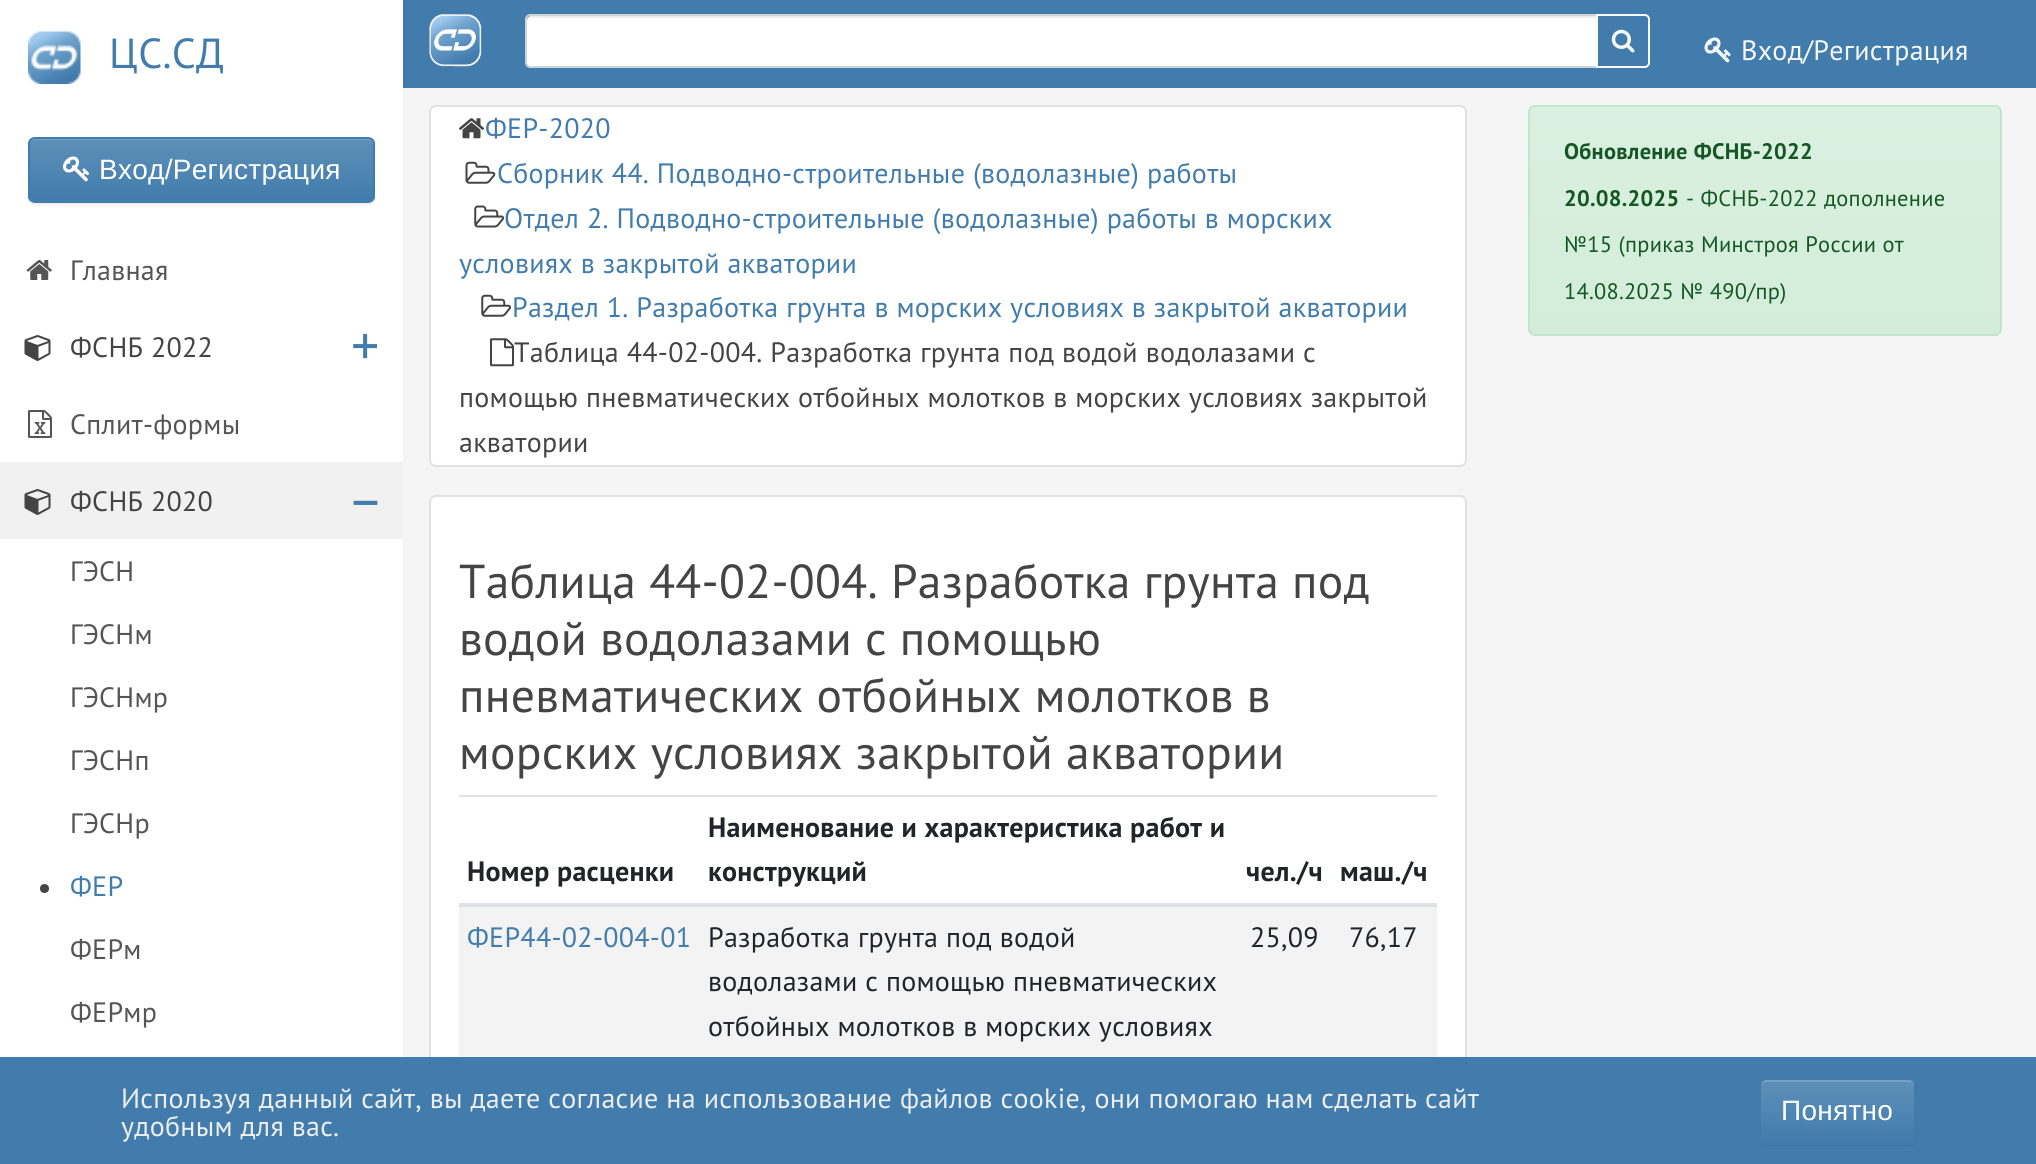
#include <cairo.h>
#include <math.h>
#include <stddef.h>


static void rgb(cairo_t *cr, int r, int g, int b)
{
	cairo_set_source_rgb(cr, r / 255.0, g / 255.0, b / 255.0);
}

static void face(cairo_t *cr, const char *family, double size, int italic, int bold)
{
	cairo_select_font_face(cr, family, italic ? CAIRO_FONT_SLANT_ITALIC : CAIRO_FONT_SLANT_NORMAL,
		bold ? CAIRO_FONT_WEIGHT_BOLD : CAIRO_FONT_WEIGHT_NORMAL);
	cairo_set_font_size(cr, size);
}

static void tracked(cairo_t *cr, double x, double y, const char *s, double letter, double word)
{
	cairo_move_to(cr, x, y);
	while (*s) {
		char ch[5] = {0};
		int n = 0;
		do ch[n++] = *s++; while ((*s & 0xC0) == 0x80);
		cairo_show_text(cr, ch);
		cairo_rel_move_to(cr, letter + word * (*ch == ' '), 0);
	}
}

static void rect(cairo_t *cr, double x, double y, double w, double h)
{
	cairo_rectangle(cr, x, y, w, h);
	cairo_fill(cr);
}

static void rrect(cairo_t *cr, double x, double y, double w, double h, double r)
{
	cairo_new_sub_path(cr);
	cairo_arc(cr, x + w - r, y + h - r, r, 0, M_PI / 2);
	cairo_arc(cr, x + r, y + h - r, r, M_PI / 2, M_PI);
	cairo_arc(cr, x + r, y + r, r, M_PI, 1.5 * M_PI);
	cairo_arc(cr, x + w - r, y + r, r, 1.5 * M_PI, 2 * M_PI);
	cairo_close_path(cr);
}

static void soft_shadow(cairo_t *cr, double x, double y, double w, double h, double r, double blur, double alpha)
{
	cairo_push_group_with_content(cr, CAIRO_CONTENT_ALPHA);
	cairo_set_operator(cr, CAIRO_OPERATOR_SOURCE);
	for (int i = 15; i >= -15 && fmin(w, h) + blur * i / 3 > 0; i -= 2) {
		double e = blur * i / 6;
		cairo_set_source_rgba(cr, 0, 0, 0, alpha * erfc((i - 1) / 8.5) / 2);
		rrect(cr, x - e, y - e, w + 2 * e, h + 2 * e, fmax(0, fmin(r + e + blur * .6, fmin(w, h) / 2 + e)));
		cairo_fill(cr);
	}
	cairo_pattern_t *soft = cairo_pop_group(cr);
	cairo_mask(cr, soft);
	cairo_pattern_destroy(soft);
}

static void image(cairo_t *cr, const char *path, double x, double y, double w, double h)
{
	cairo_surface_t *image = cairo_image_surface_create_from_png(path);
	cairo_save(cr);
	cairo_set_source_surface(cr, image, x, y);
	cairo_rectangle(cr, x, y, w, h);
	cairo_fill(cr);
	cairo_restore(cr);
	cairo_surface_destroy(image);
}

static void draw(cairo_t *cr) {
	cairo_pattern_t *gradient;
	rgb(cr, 245, 245, 245);
	cairo_paint(cr);
	rgb(cr, 255, 255, 255);
	rect(cr, 0, 0, 403, 1057);
	image(cr, "image0.png", 28, 31, 53, 53);
	face(cr, "PT Sans", 42, 0, 0);
	rgb(cr, 65, 124, 173);
	tracked(cr, 109, 68, "ЦС.СД", 0.28, 0);
	rgb(cr, 0, 0, 0);
	soft_shadow(cr, 28, 138, 347, 67, 7, 1, 0.07);
	cairo_save(cr);
	rrect(cr, 28, 137, 347, 66, 7);
	cairo_clip(cr);
	gradient = cairo_pattern_create_linear(201, 138, 201, 201);
	cairo_pattern_add_color_stop_rgba(gradient, 0, 0.369, 0.565, 0.725, 1);
	cairo_pattern_add_color_stop_rgba(gradient, 1, 0.255, 0.486, 0.678, 1);
	cairo_set_source(cr, gradient);
	cairo_pattern_destroy(gradient);
	rect(cr, 28, 138, 347, 63);
	cairo_restore(cr);
	rgb(cr, 118, 161, 195);
	cairo_new_path(cr);
	cairo_move_to(cr, 35, 140);
	cairo_line_to(cr, 368, 140);
	cairo_curve_to(cr, 370, 140, 373, 142, 373, 145);
	cairo_curve_to(cr, 373, 142, 372, 138, 368, 138);
	cairo_line_to(cr, 35, 138);
	cairo_curve_to(cr, 31, 138, 30, 142, 30, 145);
	cairo_curve_to(cr, 30, 142, 32, 140, 35, 140);
	cairo_close_path(cr);
	cairo_fill(cr);
	rrect(cr, 29, 138, 345, 64, 6);
	rgb(cr, 65, 124, 173);
	cairo_stroke(cr);
	image(cr, "image1.png", 63, 156, 27, 26);
	face(cr, "Liberation Sans", 28, 0, 0);
	rgb(cr, 255, 255, 255);
	tracked(cr, 99, 179, "Вход/Регистрация", 0.28, 0);
	image(cr, "image2.png", 26, 260, 26, 20);
	face(cr, "PT Sans", 28, 0, 0);
	rgb(cr, 85, 85, 85);
	tracked(cr, 70, 280, "Главная", 0.28, 0);
	image(cr, "image3.png", 24, 335, 27, 26);
	rgb(cr, 68, 68, 68);
	tracked(cr, 70, 357, "ФСНБ 2022", 0.28, 0);
	face(cr, "PT Sans", 56, 0, 0);
	rgb(cr, 65, 124, 173);
	tracked(cr, 351, 365, "+", 0.28, 0);
	image(cr, "image4.png", 28, 410, 24, 28);
	face(cr, "PT Sans", 28, 0, 0);
	rgb(cr, 85, 85, 85);
	tracked(cr, 70, 434, "Сплит-формы", 0.28, 0);
	rgb(cr, 241, 241, 241);
	rect(cr, 0, 462, 403, 77);
	image(cr, "image5.png", 24, 489, 27, 26);
	rgb(cr, 68, 68, 68);
	tracked(cr, 70, 511, "ФСНБ 2020", 0.28, 0);
	face(cr, "PT Sans", 56, 0, 0);
	rgb(cr, 65, 124, 173);
	tracked(cr, 347, 519, "–", 0.28, 0);
	face(cr, "PT Sans", 28, 0, 0);
	rgb(cr, 85, 85, 85);
	tracked(cr, 70, 581, "ГЭСН", 0.28, 0);
	tracked(cr, 70, 644, "ГЭСНм", 0.28, 0);
	tracked(cr, 70, 707, "ГЭСНмр", 0.28, 0);
	tracked(cr, 70, 770, "ГЭСНп", 0.28, 0);
	tracked(cr, 70, 833, "ГЭСНр", 0.28, 0);
	rgb(cr, 68, 68, 68);
	cairo_new_path(cr);
	cairo_arc(cr, 44.5, 888.5, 4.5, 0, 2 * M_PI);
	cairo_fill(cr);
	rgb(cr, 65, 124, 173);
	tracked(cr, 70, 896, "ФЕР", 0.28, 0);
	rgb(cr, 85, 85, 85);
	tracked(cr, 70, 959, "ФЕРм", 0.28, 0);
	tracked(cr, 70, 1022, "ФЕРмр", 0.28, 0);
	rgb(cr, 65, 124, 173);
	rect(cr, 403, 0, 1633, 88);
	image(cr, "image6.png", 429, 14, 53, 53);
	rgb(cr, 255, 255, 255);
	cairo_new_path(cr);
	cairo_move_to(cr, 531, 16);
	cairo_line_to(cr, 1596, 16);
	cairo_line_to(cr, 1596, 67);
	cairo_line_to(cr, 531, 67);
	cairo_curve_to(cr, 529, 67, 527, 65, 527, 63);
	cairo_line_to(cr, 527, 20);
	cairo_curve_to(cr, 527, 18, 529, 16, 531, 16);
	cairo_close_path(cr);
	cairo_fill(cr);
	cairo_set_source_rgba(cr, 0, 0, 0, 0.07);
	cairo_new_path(cr);
	cairo_move_to(cr, 531, 18);
	cairo_line_to(cr, 1596, 18);
	cairo_line_to(cr, 1596, 16);
	cairo_line_to(cr, 531, 16);
	cairo_curve_to(cr, 528, 16, 527, 18, 527, 21);
	cairo_curve_to(cr, 527, 19, 528, 18, 531, 18);
	cairo_close_path(cr);
	cairo_fill(cr);
	cairo_new_path(cr);
	cairo_move_to(cr, 530, 15);
	cairo_line_to(cr, 1597, 15);
	cairo_line_to(cr, 1597, 67);
	cairo_line_to(cr, 530, 67);
	cairo_curve_to(cr, 528, 67, 526, 65, 526, 63);
	cairo_line_to(cr, 526, 19);
	cairo_curve_to(cr, 526, 17, 528, 15, 530, 15);
	cairo_close_path(cr);
	rgb(cr, 206, 212, 218);
	cairo_stroke(cr);
	cairo_new_path(cr);
	cairo_move_to(cr, 1597, 15);
	cairo_line_to(cr, 1645, 15);
	cairo_curve_to(cr, 1647, 15, 1649, 17, 1649, 19);
	cairo_line_to(cr, 1649, 63);
	cairo_curve_to(cr, 1649, 65, 1647, 67, 1645, 67);
	cairo_line_to(cr, 1597, 67);
	cairo_close_path(cr);
	rgb(cr, 248, 249, 250);
	cairo_stroke(cr);
	image(cr, "image7.png", 1611, 29, 24, 24);
	image(cr, "image8.png", 1704, 37, 27, 26);
	tracked(cr, 1741, 60, "Вход/Регистрация", 0.28, 0);
	rgb(cr, 255, 255, 255);
	rrect(cr, 429, 105, 1038, 362, 7);
	cairo_fill(cr);
	rrect(cr, 430, 106, 1036, 360, 6);
	cairo_set_source_rgba(cr, 0, 0, 0, 0.12);
	cairo_stroke(cr);
	image(cr, "image9.png", 458, 118, 27, 21);
	rgb(cr, 65, 124, 173);
	tracked(cr, 485, 138, "ФЕР-2020", 0.28, 0);
	image(cr, "image10.png", 465, 161, 31, 23);
	tracked(cr, 497, 183, "Сборник 44. Подводно-строительные (водолазные) работы", 0.28, 0);
	image(cr, "image11.png", 474, 205, 30, 23);
	tracked(cr, 504, 228, "Отдел 2. Подводно-строительные (водолазные) работы в морских", 0.28, 0);
	tracked(cr, 459, 273, "условиях в закрытой акватории", 0.28, 0);
	image(cr, "image12.png", 481, 294, 31, 23);
	tracked(cr, 512, 317, "Раздел 1. Разработка грунта в морских условиях в закрытой акватории", 0.28, 0);
	image(cr, "image13.png", 490, 338, 24, 29);
	rgb(cr, 68, 68, 68);
	tracked(cr, 514, 362, "Таблица 44-02-004. Разработка грунта под водой водолазами с", 0.28, 0);
	tracked(cr, 459, 407, "помощью пневматических отбойных молотков в морских условиях закрытой", 0.28, 0);
	tracked(cr, 459, 452, "акватории", 0.28, 0);
	rgb(cr, 255, 255, 255);
	rrect(cr, 429, 495, 1038, 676, 7);
	cairo_fill(cr);
	rrect(cr, 430, 496, 1036, 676, 6);
	cairo_set_source_rgba(cr, 0, 0, 0, 0.12);
	cairo_stroke(cr);
	face(cr, "PT Sans", 47.6, 0, 0);
	rgb(cr, 68, 68, 68);
	tracked(cr, 459, 598, "Таблица 44-02-004. Разработка грунта под", 0.28, 0);
	tracked(cr, 459, 655, "водой водолазами с помощью", 0.28, 0);
	tracked(cr, 459, 712, "пневматических отбойных молотков в", 0.28, 0);
	tracked(cr, 459, 769, "морских условиях закрытой акватории", 0.28, 0);
	face(cr, "PT Sans", 28, 0, 1);
	rgb(cr, 33, 37, 41);
	tracked(cr, 467, 881, "Номер расценки", 0.28, 0);
	tracked(cr, 708, 837, "Наименование и характеристика работ и", 0.28, 0);
	tracked(cr, 708, 881, "конструкций", 0.28, 0);
	tracked(cr, 1246, 881, "чел./ч", 0.28, 0);
	rgb(cr, 222, 226, 230);
	rect(cr, 459, 795, 978, 2);
	rect(cr, 459, 903, 978, 4);
	rgb(cr, 33, 37, 41);
	tracked(cr, 1340, 881, "маш./ч", 0.28, 0);
	rgb(cr, 243, 243, 243);
	rect(cr, 459, 907, 978, 150);
	face(cr, "PT Sans", 28, 0, 0);
	rgb(cr, 65, 124, 173);
	tracked(cr, 467, 947, "ФЕР44-02-004-01", 0.28, 0);
	rgb(cr, 33, 37, 41);
	tracked(cr, 708, 947, "Разработка грунта под водой", 0.28, 0);
	tracked(cr, 708, 991, "водолазами с помощью пневматических", 0.28, 0);
	tracked(cr, 708, 1036, "отбойных молотков в морских условиях", 0.28, 0);
	tracked(cr, 1250, 947, "25,09", 0.28, 0);
	tracked(cr, 1349, 947, "76,17", 0.28, 0);
	cairo_save(cr);
	rrect(cr, 1528, 105, 474, 231, 7);
	cairo_clip(cr);
	gradient = cairo_pattern_create_linear(1765, 107, 1765, 334);
	cairo_pattern_add_color_stop_rgba(gradient, 0, 0.855, 0.941, 0.878, 1);
	cairo_pattern_add_color_stop_rgba(gradient, 1, 0.831, 0.929, 0.855, 1);
	cairo_set_source(cr, gradient);
	cairo_pattern_destroy(gradient);
	rect(cr, 1528, 107, 474, 227);
	cairo_restore(cr);
	rrect(cr, 1529, 106, 472, 229, 6);
	rgb(cr, 195, 230, 203);
	cairo_stroke(cr);
	face(cr, "PT Sans", 22.4, 0, 1);
	rgb(cr, 21, 87, 36);
	tracked(cr, 1564, 159, "Обновление ФСНБ-2022", 0.28, 0);
	tracked(cr, 1564, 206, "20.08.2025", 0.28, 0);
	face(cr, "PT Sans", 22.4, 0, 0);
	tracked(cr, 1686, 206, "- ФСНБ-2022 дополнение", 0.28, 0);
	tracked(cr, 1564, 252, "№15 (приказ Минстроя России от", 0.28, 0);
	tracked(cr, 1564, 299, "14.08.2025 № 490/пр)", 0.28, 0);
	rgb(cr, 65, 124, 173);
	rect(cr, 0, 1057, 2036, 107);
	face(cr, "PT Sans", 28, 0, 0);
	rgb(cr, 238, 238, 238);
	tracked(cr, 121, 1108, "Используя данный сайт, вы даете согласие на использование файлов cookie, они помогаю нам сделать сайт", 0.28, 0);
	tracked(cr, 121, 1136, "удобным для вас.", 0.28, 0);
	rgb(cr, 0, 0, 0);
	soft_shadow(cr, 1759, 1080, 157, 66, 7, 1, 0.07);
	cairo_save(cr);
	rrect(cr, 1759, 1078, 157, 67, 7);
	cairo_clip(cr);
	gradient = cairo_pattern_create_linear(1838, 1080, 1838, 1143);
	cairo_pattern_add_color_stop_rgba(gradient, 0, 0.369, 0.565, 0.725, 1);
	cairo_pattern_add_color_stop_rgba(gradient, 1, 0.255, 0.486, 0.678, 1);
	cairo_set_source(cr, gradient);
	cairo_pattern_destroy(gradient);
	rect(cr, 1759, 1080, 157, 63);
	cairo_restore(cr);
	cairo_set_source_rgba(cr, 1, 1, 1, 0.15);
	cairo_new_path(cr);
	cairo_move_to(cr, 1766, 1082);
	cairo_line_to(cr, 1909, 1082);
	cairo_curve_to(cr, 1912, 1082, 1914, 1084, 1914, 1087);
	cairo_line_to(cr, 1914, 1139);
	cairo_line_to(cr, 1913, 1142);
	cairo_curve_to(cr, 1914, 1141, 1915, 1139, 1915, 1138);
	cairo_line_to(cr, 1915, 1085);
	cairo_curve_to(cr, 1915, 1082, 1913, 1080, 1910, 1080);
	cairo_line_to(cr, 1766, 1080);
	cairo_curve_to(cr, 1764, 1080, 1761, 1082, 1761, 1084);
	cairo_curve_to(cr, 1762, 1083, 1764, 1082, 1766, 1082);
	cairo_close_path(cr);
	cairo_fill(cr);
	rrect(cr, 1760, 1079, 155, 65, 6);
	rgb(cr, 65, 124, 173);
	cairo_stroke(cr);
	face(cr, "Liberation Sans", 28, 0, 0);
	rgb(cr, 255, 255, 255);
	tracked(cr, 1781, 1120, "Понятно", 0.28, 0);
}

int main(void) {
	cairo_surface_t *surface = cairo_image_surface_create(CAIRO_FORMAT_RGB24, 2036, 1164);
	cairo_t *cr = cairo_create(surface);
	cairo_font_options_t *options = cairo_font_options_create();
	cairo_font_options_set_hint_metrics(options, CAIRO_HINT_METRICS_OFF);
	cairo_font_options_set_hint_style(options, CAIRO_HINT_STYLE_NONE);
	cairo_set_font_options(cr, options);
	cairo_set_miter_limit(cr, 4);
	draw(cr);
	cairo_surface_write_to_png(surface, "render.png");
	cairo_font_options_destroy(options);
	cairo_destroy(cr);
	cairo_surface_destroy(surface);
	return 0;
}
